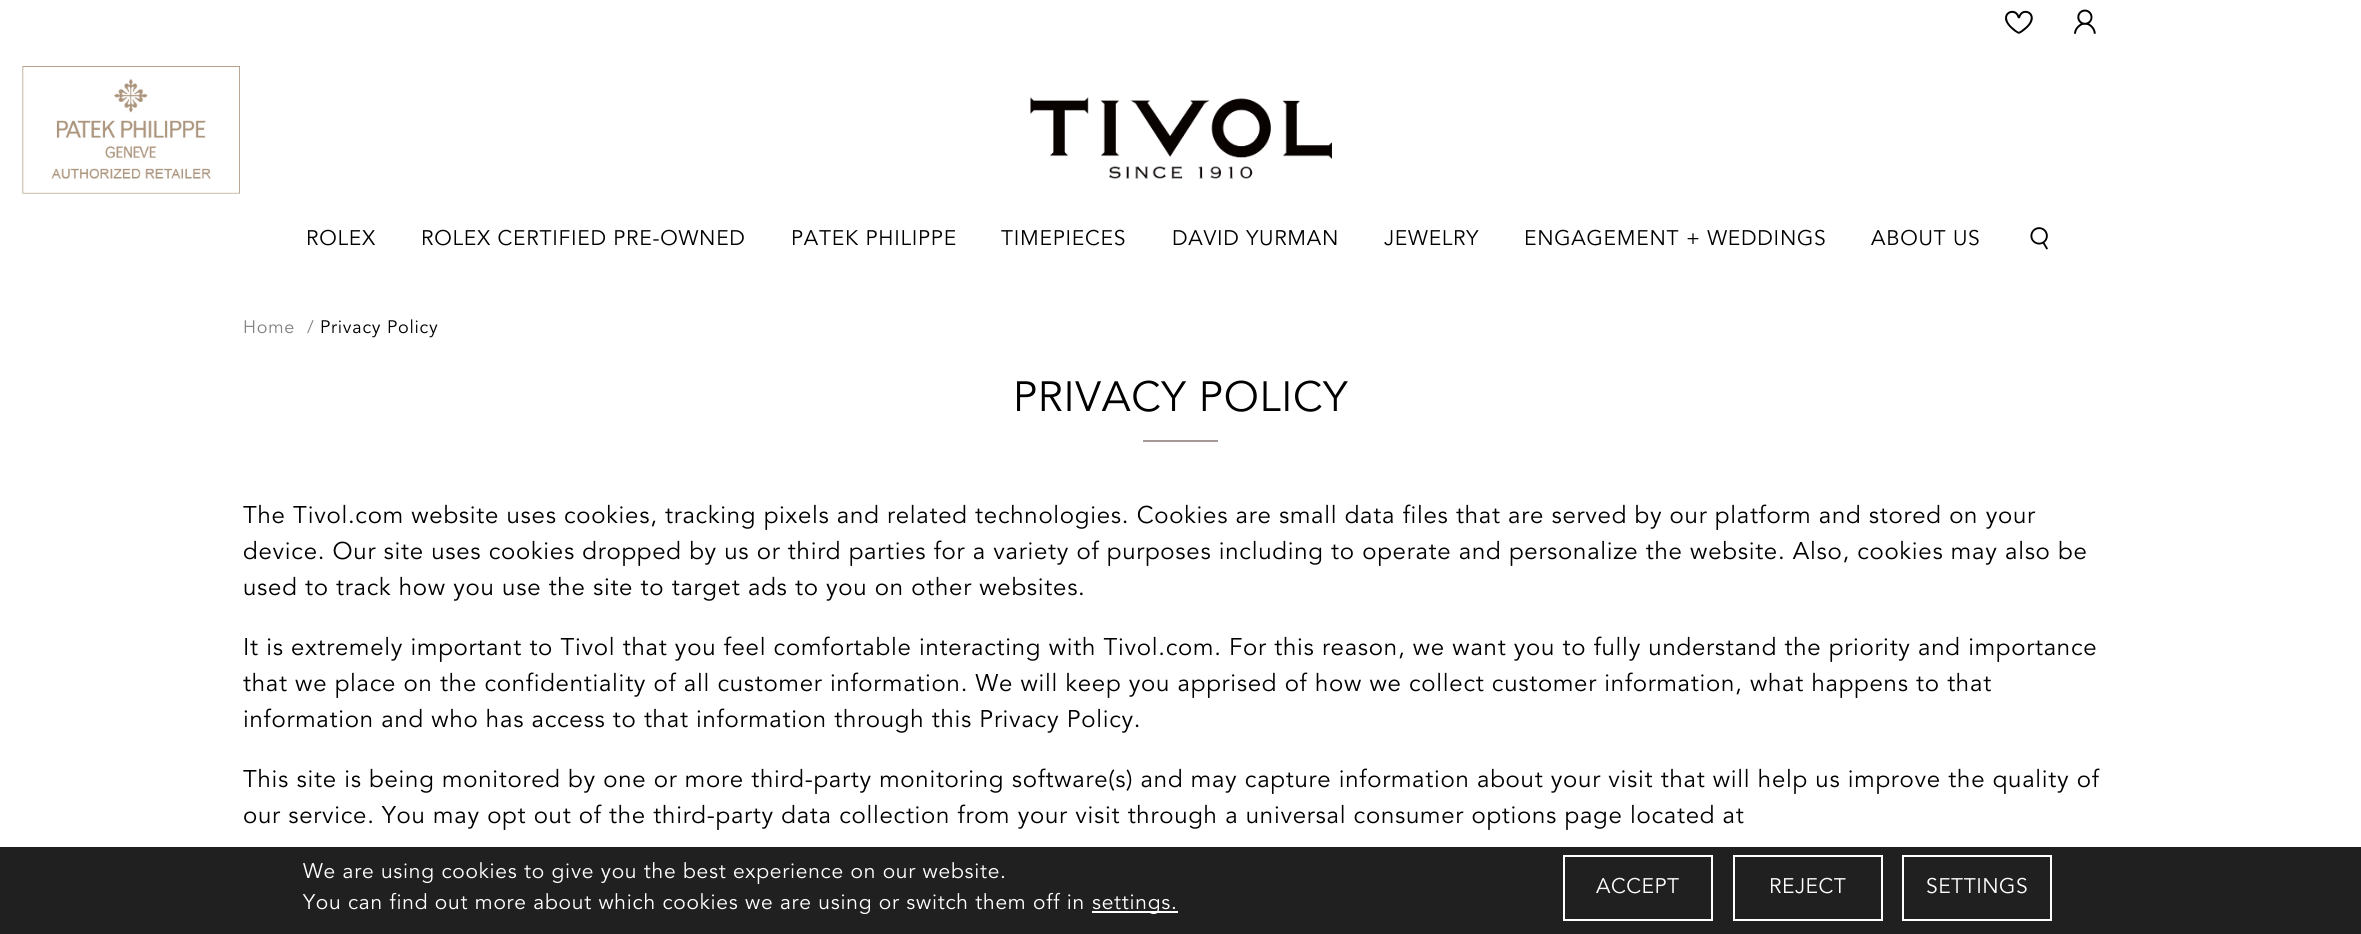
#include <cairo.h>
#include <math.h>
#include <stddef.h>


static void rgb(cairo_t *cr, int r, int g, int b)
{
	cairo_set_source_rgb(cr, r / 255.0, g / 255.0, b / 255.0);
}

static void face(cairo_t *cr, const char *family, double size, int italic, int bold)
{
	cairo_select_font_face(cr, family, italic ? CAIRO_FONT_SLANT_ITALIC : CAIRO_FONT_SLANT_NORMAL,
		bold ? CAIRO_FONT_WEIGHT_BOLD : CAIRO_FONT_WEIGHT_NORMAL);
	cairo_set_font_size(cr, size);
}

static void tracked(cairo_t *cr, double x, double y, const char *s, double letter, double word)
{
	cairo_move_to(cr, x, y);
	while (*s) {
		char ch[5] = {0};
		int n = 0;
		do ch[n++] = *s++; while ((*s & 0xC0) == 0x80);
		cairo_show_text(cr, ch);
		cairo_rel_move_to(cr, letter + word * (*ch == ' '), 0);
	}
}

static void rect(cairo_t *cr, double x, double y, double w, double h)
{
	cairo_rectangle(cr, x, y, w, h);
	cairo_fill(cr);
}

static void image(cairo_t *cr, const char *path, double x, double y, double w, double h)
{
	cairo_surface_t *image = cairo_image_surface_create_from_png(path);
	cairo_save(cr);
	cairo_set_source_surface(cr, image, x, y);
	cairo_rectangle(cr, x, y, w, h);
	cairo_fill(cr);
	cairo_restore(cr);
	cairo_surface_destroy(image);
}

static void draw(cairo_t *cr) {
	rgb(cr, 255, 255, 255);
	cairo_paint(cr);
	image(cr, "image0.png", 2005, 10, 28, 24);
	image(cr, "image1.png", 2074, 9, 22, 25);
	image(cr, "image2.png", 1030, 97, 302, 82);
	image(cr, "image3.png", 22, 66, 218, 128);
	face(cr, "Avenir", 21, 0, 0);
	rgb(cr, 0, 0, 0);
	tracked(cr, 306, 245, "ROLEX", 0.75, 0);
	tracked(cr, 421, 245, "ROLEX CERTIFIED PRE-OWNED", 0.75, 0);
	tracked(cr, 791, 245, "PATEK PHILIPPE", 0.75, 0);
	tracked(cr, 1001, 245, "TIMEPIECES", 0.75, 0);
	tracked(cr, 1172, 245, "DAVID YURMAN", 0.75, 0);
	tracked(cr, 1384, 245, "JEWELRY", 0.75, 0);
	tracked(cr, 1524, 245, "ENGAGEMENT + WEDDINGS", 0.75, 0);
	tracked(cr, 1871, 245, "ABOUT US", 0.75, 0);
	image(cr, "image4.png", 2030, 227, 18, 23);
	face(cr, "Avenir", 18, 0, 0);
	rgb(cr, 132, 131, 131);
	tracked(cr, 243, 333, "Home", 0.75, 0);
	tracked(cr, 307, 333, "/", 0.75, 0);
	rgb(cr, 0, 0, 0);
	tracked(cr, 320, 333, "Privacy Policy", 0.75, 0);
	face(cr, "Avenir", 42, 0, 0);
	tracked(cr, 1013, 411, "PRIVACY POLICY", 0.75, 0);
	rgb(cr, 166, 154, 150);
	rect(cr, 1143, 440, 75, 2);
	face(cr, "Avenir", 24, 0, 0);
	rgb(cr, 0, 0, 0);
	tracked(cr, 243, 523, "The Tivol.com website uses cookies, tracking pixels and related technologies. Cookies are small data files that are served by our platform and stored on your", 0.75, 0);
	tracked(cr, 243, 559, "device. Our site uses cookies dropped by us or third parties for a variety of purposes including to operate and personalize the website. Also, cookies may also be", 0.75, 0);
	tracked(cr, 243, 595, "used to track how you use the site to target ads to you on other websites.", 0.75, 0);
	tracked(cr, 243, 655, "It is extremely important to Tivol that you feel comfortable interacting with Tivol.com. For this reason, we want you to fully understand the priority and importance", 0.75, 0);
	tracked(cr, 243, 691, "that we place on the confidentiality of all customer information. We will keep you apprised of how we collect customer information, what happens to that", 0.75, 0);
	tracked(cr, 243, 727, "information and who has access to that information through this Privacy Policy.", 0.75, 0);
	tracked(cr, 243, 787, "This site is being monitored by one or more third-party monitoring software(s) and may capture information about your visit that will help us improve the quality of", 0.75, 0);
	tracked(cr, 243, 823, "our service. You may opt out of the third-party data collection from your visit through a universal consumer options page located at", 0.75, 0);
	rgb(cr, 32, 32, 32);
	rect(cr, 0, 847, 2361, 87);
	face(cr, "Avenir", 21, 0, 0);
	rgb(cr, 255, 255, 255);
	tracked(cr, 303, 878, "We are using cookies to give you the best experience on our website.", 0.75, 0);
	tracked(cr, 303, 909, "You can find out more about which cookies we are using or switch them off in", 0.75, 0);
	rect(cr, 1092, 911, 86, 2);
	tracked(cr, 1092, 909, "settings.", 0.75, 0);
	cairo_rectangle(cr, 1564, 856, 148, 64);
	cairo_stroke(cr);
	tracked(cr, 1596, 893, "ACCEPT", 0.5, 0);
	cairo_rectangle(cr, 1734, 856, 148, 64);
	cairo_stroke(cr);
	tracked(cr, 1769, 893, "REJECT", 0.5, 0);
	cairo_rectangle(cr, 1903, 856, 148, 64);
	cairo_stroke(cr);
	tracked(cr, 1926, 893, "SETTINGS", 0.5, 0);
}

int main(void) {
	cairo_surface_t *surface = cairo_image_surface_create(CAIRO_FORMAT_RGB24, 2361, 934);
	cairo_t *cr = cairo_create(surface);
	cairo_font_options_t *options = cairo_font_options_create();
	cairo_font_options_set_hint_metrics(options, CAIRO_HINT_METRICS_OFF);
	cairo_font_options_set_hint_style(options, CAIRO_HINT_STYLE_NONE);
	cairo_set_font_options(cr, options);
	cairo_set_miter_limit(cr, 4);
	draw(cr);
	cairo_surface_write_to_png(surface, "render.png");
	cairo_font_options_destroy(options);
	cairo_destroy(cr);
	cairo_surface_destroy(surface);
	return 0;
}
